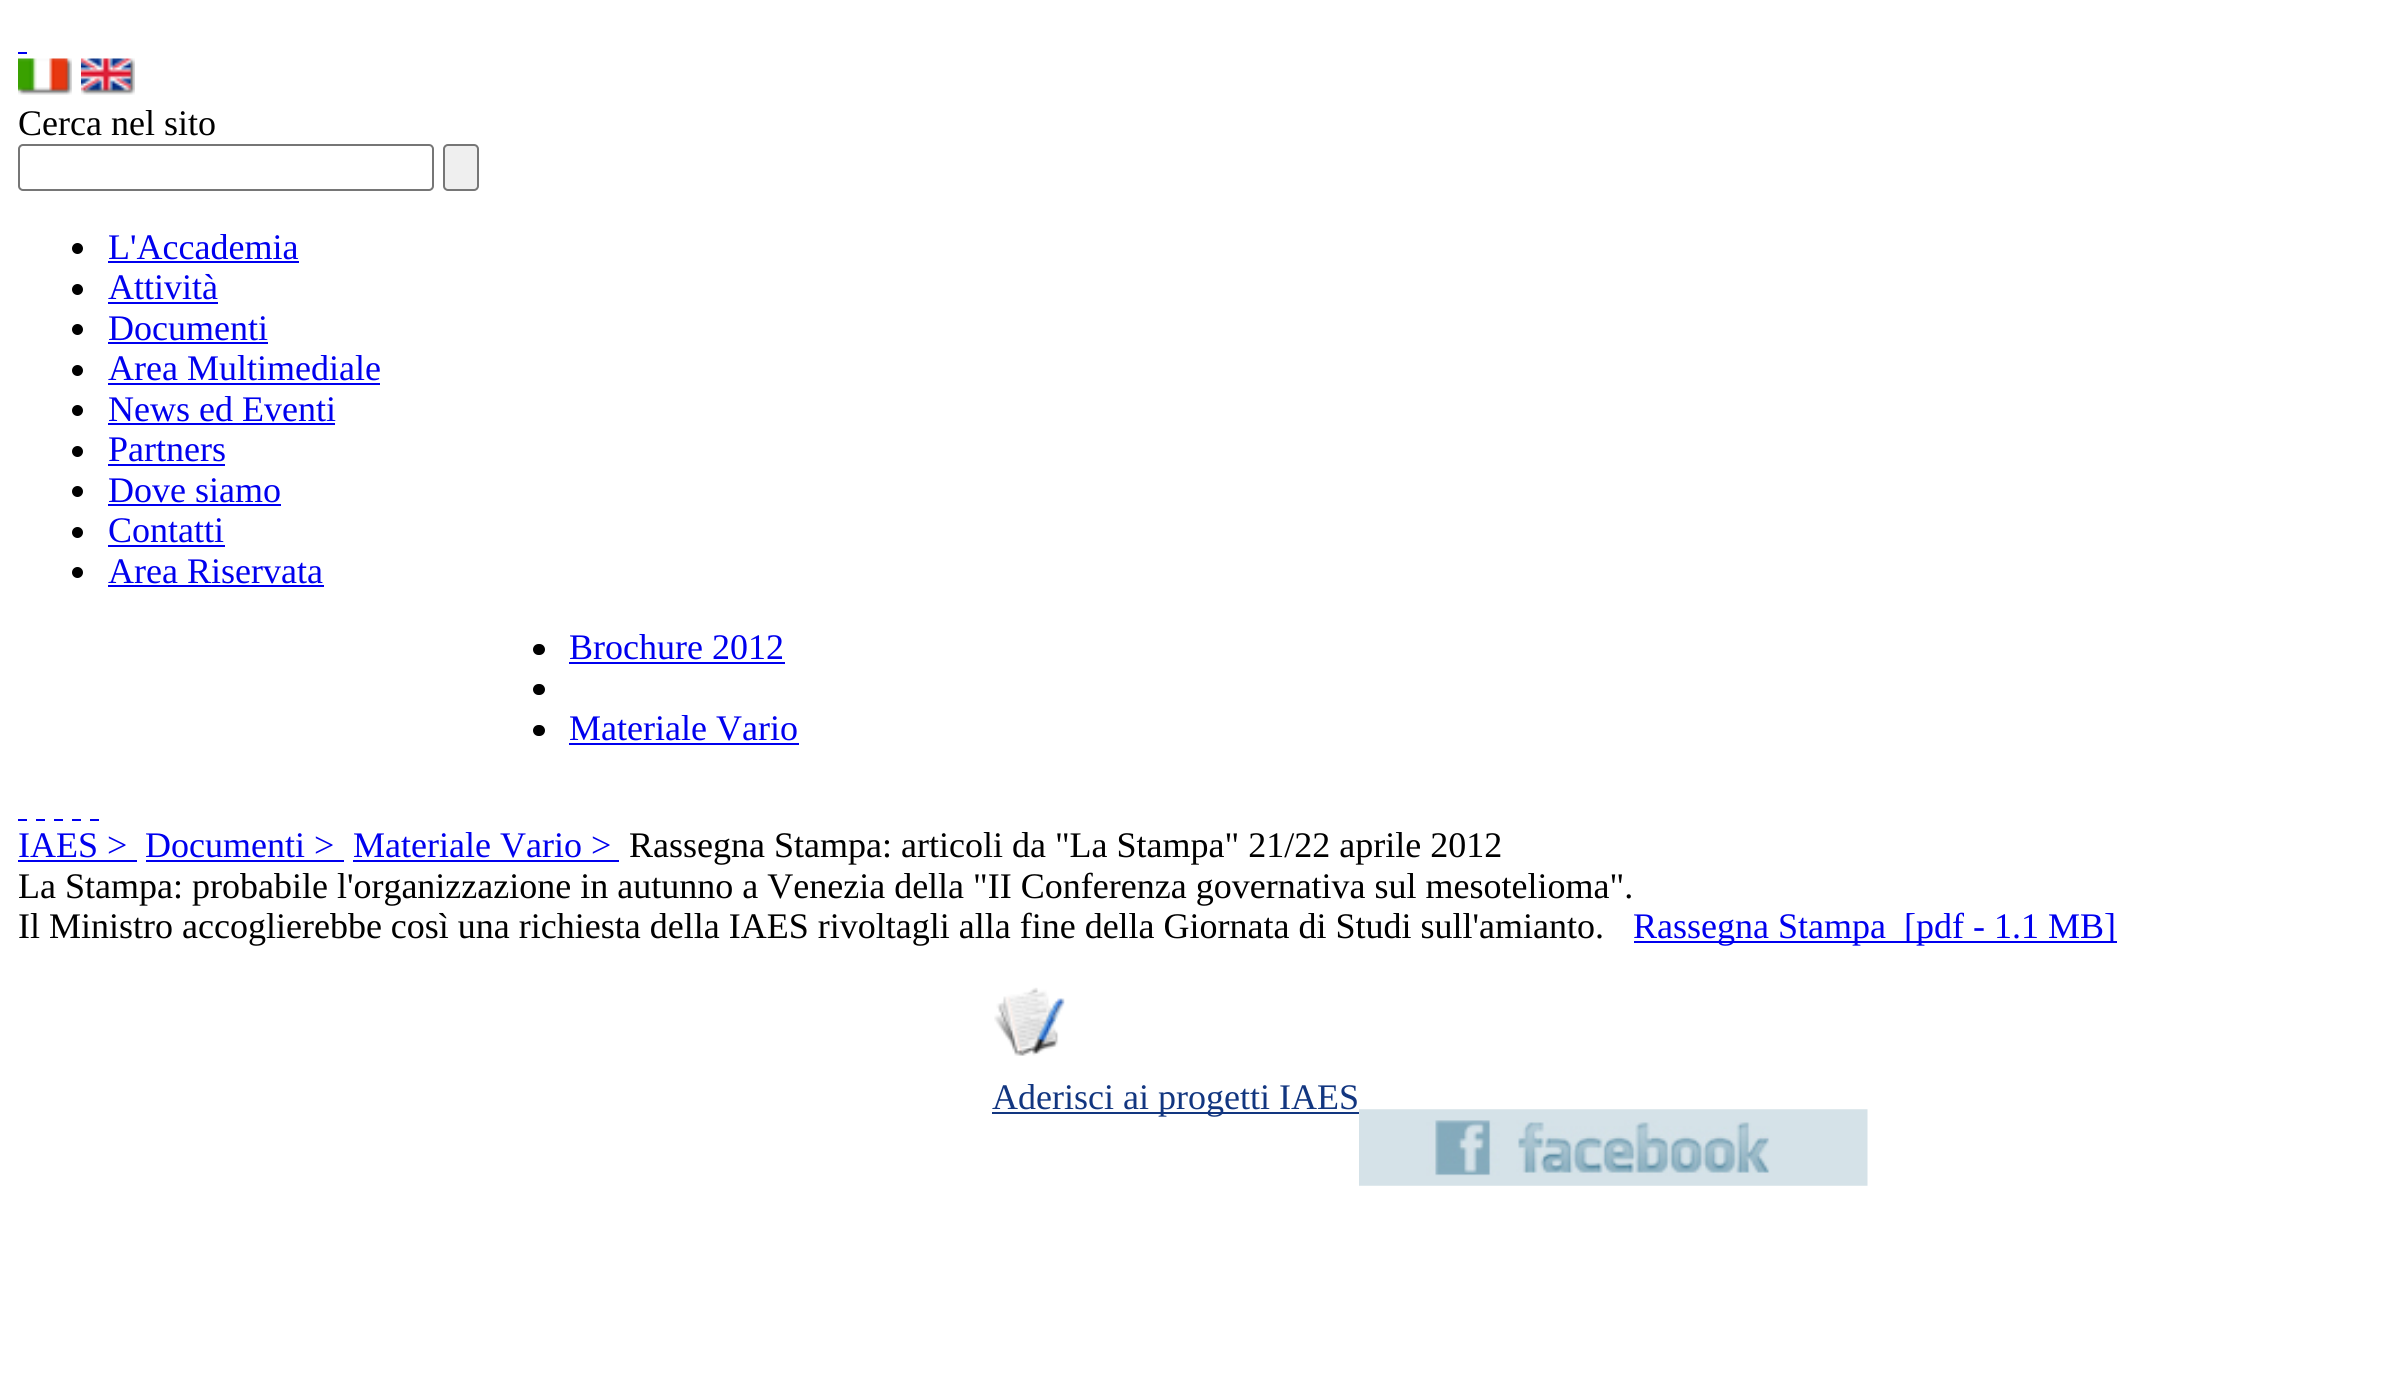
#include <cairo.h>
#include <math.h>
#include <stddef.h>


static void rgb(cairo_t *cr, int r, int g, int b)
{
	cairo_set_source_rgb(cr, r / 255.0, g / 255.0, b / 255.0);
}

static void face(cairo_t *cr, const char *family, double size, int italic, int bold)
{
	cairo_select_font_face(cr, family, italic ? CAIRO_FONT_SLANT_ITALIC : CAIRO_FONT_SLANT_NORMAL,
		bold ? CAIRO_FONT_WEIGHT_BOLD : CAIRO_FONT_WEIGHT_NORMAL);
	cairo_set_font_size(cr, size);
}

static void label(cairo_t *cr, double x, double y, const char *s)
{
	cairo_move_to(cr, x, y);
	cairo_show_text(cr, s);
}

static void rect(cairo_t *cr, double x, double y, double w, double h)
{
	cairo_rectangle(cr, x, y, w, h);
	cairo_fill(cr);
}

static void rrect(cairo_t *cr, double x, double y, double w, double h, double r)
{
	cairo_new_sub_path(cr);
	cairo_arc(cr, x + w - r, y + h - r, r, 0, M_PI / 2);
	cairo_arc(cr, x + r, y + h - r, r, M_PI / 2, M_PI);
	cairo_arc(cr, x + r, y + r, r, M_PI, 1.5 * M_PI);
	cairo_arc(cr, x + w - r, y + r, r, 1.5 * M_PI, 2 * M_PI);
	cairo_close_path(cr);
}

static void image(cairo_t *cr, const char *path, double x, double y, double w, double h)
{
	cairo_surface_t *image = cairo_image_surface_create_from_png(path);
	cairo_save(cr);
	cairo_set_source_surface(cr, image, x, y);
	cairo_rectangle(cr, x, y, w, h);
	cairo_fill(cr);
	cairo_restore(cr);
	cairo_surface_destroy(image);
}

static void draw(cairo_t *cr) {
	rgb(cr, 255, 255, 255);
	cairo_paint(cr);
	rgb(cr, 0, 0, 238);
	rect(cr, 18, 52, 9, 2);
	image(cr, "image0.png", 18, 58, 54, 37);
	image(cr, "image1.png", 81, 58, 54, 37);
	face(cr, "Liberation Serif", 36, 0, 0);
	rgb(cr, 0, 0, 0);
	label(cr, 18, 135, "Cerca nel sito");
	rrect(cr, 19, 145, 414, 45, 4);
	rgb(cr, 118, 118, 118);
	cairo_stroke(cr);
	rgb(cr, 239, 239, 239);
	rrect(cr, 444, 145, 34, 45, 4);
	cairo_fill_preserve(cr);
	rgb(cr, 118, 118, 118);
	cairo_stroke(cr);
	rgb(cr, 0, 0, 0);
	cairo_arc(cr, 77.5, 248.5, 5.5, 0, 2 * M_PI);
	cairo_fill(cr);
	rgb(cr, 0, 0, 238);
	label(cr, 108, 259, "L'Accademia");
	rect(cr, 108, 261, 191, 2);
	rgb(cr, 0, 0, 0);
	cairo_new_path(cr);
	cairo_arc(cr, 77.5, 289.5, 5.5, 0, 2 * M_PI);
	cairo_fill(cr);
	rgb(cr, 0, 0, 238);
	label(cr, 108, 299, "Attività");
	rect(cr, 108, 302, 110, 2);
	rgb(cr, 0, 0, 0);
	cairo_new_path(cr);
	cairo_arc(cr, 77.5, 329.5, 5.5, 0, 2 * M_PI);
	cairo_fill(cr);
	rgb(cr, 0, 0, 238);
	label(cr, 108, 340, "Documenti");
	rect(cr, 108, 342, 160, 2);
	rgb(cr, 0, 0, 0);
	cairo_new_path(cr);
	cairo_arc(cr, 77.5, 370.5, 5.5, 0, 2 * M_PI);
	cairo_fill(cr);
	rgb(cr, 0, 0, 238);
	label(cr, 108, 380, "Area Multimediale");
	rect(cr, 108, 383, 272, 2);
	rgb(cr, 0, 0, 0);
	cairo_new_path(cr);
	cairo_arc(cr, 77.5, 410.5, 5.5, 0, 2 * M_PI);
	cairo_fill(cr);
	rgb(cr, 0, 0, 238);
	label(cr, 108, 421, "News ed Eventi");
	rect(cr, 108, 423, 227, 2);
	rgb(cr, 0, 0, 0);
	cairo_new_path(cr);
	cairo_arc(cr, 77.5, 451.5, 5.5, 0, 2 * M_PI);
	cairo_fill(cr);
	rgb(cr, 0, 0, 238);
	label(cr, 108, 461, "Partners");
	rect(cr, 108, 464, 117, 2);
	rgb(cr, 0, 0, 0);
	cairo_new_path(cr);
	cairo_arc(cr, 77.5, 491.5, 5.5, 0, 2 * M_PI);
	cairo_fill(cr);
	rgb(cr, 0, 0, 238);
	label(cr, 108, 502, "Dove siamo");
	rect(cr, 108, 504, 173, 2);
	rgb(cr, 0, 0, 0);
	cairo_new_path(cr);
	cairo_arc(cr, 77.5, 532.5, 5.5, 0, 2 * M_PI);
	cairo_fill(cr);
	rgb(cr, 0, 0, 238);
	label(cr, 108, 542, "Contatti");
	rect(cr, 108, 545, 117, 2);
	rgb(cr, 0, 0, 0);
	cairo_new_path(cr);
	cairo_arc(cr, 77.5, 572.5, 5.5, 0, 2 * M_PI);
	cairo_fill(cr);
	rgb(cr, 0, 0, 238);
	label(cr, 108, 583, "Area Riservata");
	rect(cr, 108, 585, 216, 2);
	rgb(cr, 0, 0, 0);
	rrect(cr, 533, 644, 12, 11, 5.5);
	cairo_fill(cr);
	rgb(cr, 0, 0, 238);
	label(cr, 569, 659, "Brochure 2012");
	rect(cr, 569, 662, 216, 2);
	rgb(cr, 0, 0, 0);
	rrect(cr, 533, 684, 12, 11, 5.5);
	cairo_fill(cr);
	rrect(cr, 533, 725, 12, 11, 5.5);
	cairo_fill(cr);
	rgb(cr, 0, 0, 238);
	label(cr, 569, 740, "Materiale Vario");
	rect(cr, 569, 743, 230, 2);
	rect(cr, 18, 819, 9, 2);
	rect(cr, 36, 819, 9, 2);
	rect(cr, 54, 819, 9, 2);
	rect(cr, 72, 819, 9, 2);
	rect(cr, 90, 819, 9, 2);
	label(cr, 18, 857, "IAES >");
	rect(cr, 18, 860, 119, 2);
	label(cr, 145, 857, "Documenti >");
	rect(cr, 146, 860, 198, 2);
	label(cr, 353, 857, "Materiale Vario >");
	rect(cr, 353, 860, 266, 2);
	rgb(cr, 0, 0, 0);
	label(cr, 629, 857, "Rassegna Stampa: articoli da \"La Stampa\" 21/22 aprile 2012");
	label(cr, 18, 898, "La Stampa: probabile l'organizzazione in autunno a Venezia della \"II Conferenza governativa sul mesotelioma\".");
	label(cr, 18, 938, "Il Ministro accoglierebbe così una richiesta della IAES rivoltagli alla fine della Giornata di Studi sull'amianto.");
	rgb(cr, 0, 0, 238);
	rect(cr, 1634, 941, 483, 2);
	label(cr, 1633, 938, "Rassegna Stampa  [pdf - 1.1 MB]");
	image(cr, "image2.png", 994, 987, 71, 69);
	rgb(cr, 18, 54, 128);
	rect(cr, 992, 1112, 367, 2);
	label(cr, 992, 1109, "Aderisci ai progetti IAES");
	image(cr, "image3.png", 1359, 1109, 509, 77);
}

int main(void) {
	cairo_surface_t *surface = cairo_image_surface_create(CAIRO_FORMAT_RGB24, 2400, 1380);
	cairo_t *cr = cairo_create(surface);
	cairo_font_options_t *options = cairo_font_options_create();
	cairo_font_options_set_hint_metrics(options, CAIRO_HINT_METRICS_OFF);
	cairo_font_options_set_hint_style(options, CAIRO_HINT_STYLE_NONE);
	cairo_set_font_options(cr, options);
	cairo_set_miter_limit(cr, 4);
	draw(cr);
	cairo_surface_write_to_png(surface, "render.png");
	cairo_font_options_destroy(options);
	cairo_destroy(cr);
	cairo_surface_destroy(surface);
	return 0;
}
